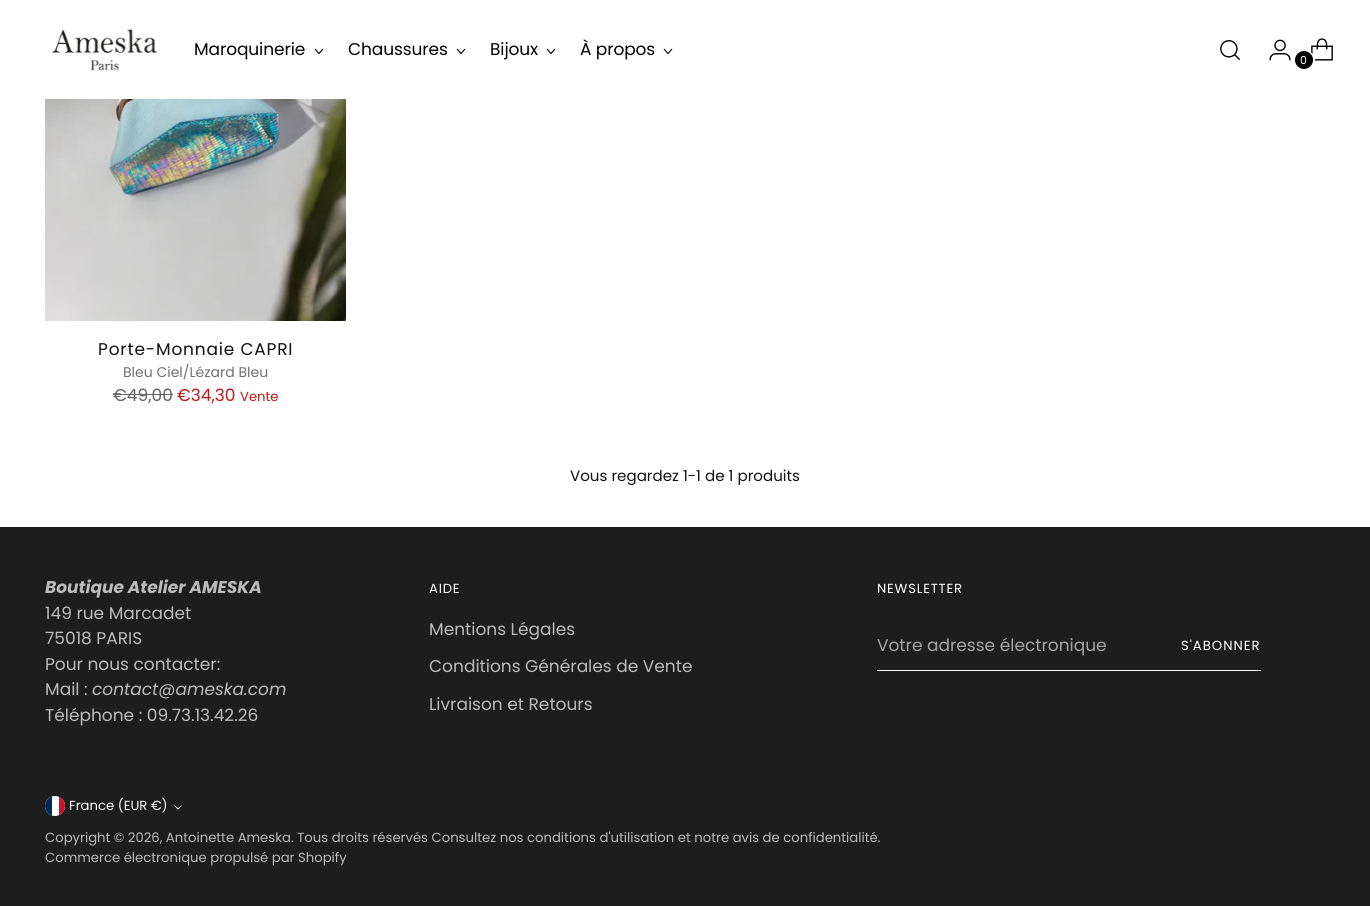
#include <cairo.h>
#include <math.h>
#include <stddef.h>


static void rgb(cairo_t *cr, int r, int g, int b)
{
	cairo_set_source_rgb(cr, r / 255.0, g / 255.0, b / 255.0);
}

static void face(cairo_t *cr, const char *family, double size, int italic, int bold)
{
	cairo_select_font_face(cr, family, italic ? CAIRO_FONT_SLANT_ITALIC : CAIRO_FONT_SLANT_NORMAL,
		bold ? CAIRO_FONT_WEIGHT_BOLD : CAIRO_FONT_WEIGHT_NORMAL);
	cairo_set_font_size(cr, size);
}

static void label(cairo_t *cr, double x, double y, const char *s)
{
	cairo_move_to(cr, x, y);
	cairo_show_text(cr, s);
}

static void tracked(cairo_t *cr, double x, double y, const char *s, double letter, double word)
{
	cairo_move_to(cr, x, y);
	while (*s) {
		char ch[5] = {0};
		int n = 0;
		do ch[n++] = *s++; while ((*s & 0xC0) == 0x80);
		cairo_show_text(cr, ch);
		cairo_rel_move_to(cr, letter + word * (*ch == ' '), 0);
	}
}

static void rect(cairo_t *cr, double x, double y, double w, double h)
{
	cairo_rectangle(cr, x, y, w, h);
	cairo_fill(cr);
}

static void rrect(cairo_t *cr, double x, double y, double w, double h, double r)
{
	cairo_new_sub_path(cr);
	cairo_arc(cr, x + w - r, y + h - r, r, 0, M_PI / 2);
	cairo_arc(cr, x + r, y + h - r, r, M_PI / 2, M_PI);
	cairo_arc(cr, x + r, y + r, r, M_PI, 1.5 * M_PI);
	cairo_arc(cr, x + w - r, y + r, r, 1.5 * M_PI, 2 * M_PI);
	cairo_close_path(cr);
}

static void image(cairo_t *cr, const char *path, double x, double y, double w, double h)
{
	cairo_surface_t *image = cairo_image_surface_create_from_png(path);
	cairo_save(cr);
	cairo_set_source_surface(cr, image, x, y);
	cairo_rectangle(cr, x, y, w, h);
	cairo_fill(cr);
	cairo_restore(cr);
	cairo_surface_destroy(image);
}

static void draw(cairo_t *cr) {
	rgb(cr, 255, 255, 255);
	cairo_paint(cr);
	image(cr, "image0.png", 52, 29, 106, 42);
	face(cr, "Poppins", 17, 0, 0);
	rgb(cr, 0, 0, 0);
	tracked(cr, 194, 55, "Maroquinerie", -0.1, 0);
	cairo_new_path(cr);
	cairo_move_to(cr, 315, 49);
	cairo_line_to(cr, 319, 53.5);
	cairo_line_to(cr, 323, 49);
	cairo_set_line_width(cr, 1.1);
	cairo_stroke(cr);
	tracked(cr, 348, 55, "Chaussures", -0.1, 0);
	cairo_new_path(cr);
	cairo_move_to(cr, 457, 49);
	cairo_line_to(cr, 461, 53.5);
	cairo_line_to(cr, 465, 49);
	cairo_stroke(cr);
	tracked(cr, 490, 55, "Bijoux", -0.1, 0);
	cairo_new_path(cr);
	cairo_move_to(cr, 547, 49);
	cairo_line_to(cr, 551, 53.5);
	cairo_line_to(cr, 555, 49);
	cairo_stroke(cr);
	tracked(cr, 580, 55, "À propos", -0.1, 0);
	cairo_new_path(cr);
	cairo_move_to(cr, 664, 49);
	cairo_line_to(cr, 668, 53.5);
	cairo_line_to(cr, 672, 49);
	cairo_stroke(cr);
	image(cr, "image1.png", 1220, 40, 21, 21);
	image(cr, "image2.png", 1269, 39, 22, 22);
	image(cr, "image3.png", 1311, 38, 22, 23);
	cairo_arc(cr, 1304.5, 60.5, 9.5, 0, 2 * M_PI);
	rgb(cr, 255, 255, 255);
	cairo_set_line_width(cr, 2);
	cairo_stroke(cr);
	rgb(cr, 0, 0, 0);
	cairo_arc(cr, 1304, 60, 9, 0, 2 * M_PI);
	cairo_fill(cr);
	face(cr, "Poppins", 11, 0, 0);
	rgb(cr, 255, 255, 255);
	label(cr, 1300, 64, "0");
	image(cr, "image4.png", 45, 99, 301, 222);
	face(cr, "Poppins", 17, 0, 0);
	rgb(cr, 17, 17, 17);
	tracked(cr, 98, 355, "Porte-Monnaie CAPRI", 0.8, 0);
	face(cr, "Poppins", 14, 0, 0);
	rgb(cr, 112, 112, 112);
	label(cr, 123, 377, "Bleu Ciel/Lézard Bleu");
	face(cr, "Poppins", 17, 0, 0);
	rgb(cr, 100, 100, 100);
	label(cr, 113, 401, "€49,00");
	rect(cr, 113, 394, 60, 1);
	rgb(cr, 195, 24, 24);
	label(cr, 177, 401, "€34,30");
	face(cr, "Poppins", 13.2, 0, 0);
	label(cr, 240, 401, "Vente");
	face(cr, "Poppins", 15.1, 0, 0);
	rgb(cr, 17, 17, 17);
	label(cr, 570, 481, "Vous regardez 1-1 de 1 produits");
	rgb(cr, 29, 29, 29);
	rect(cr, 0, 527, 1370, 379);
	face(cr, "Poppins", 17, 1, 1);
	rgb(cr, 187, 187, 187);
	label(cr, 45, 593, "Boutique Atelier AMESKA");
	face(cr, "Poppins", 17, 0, 0);
	label(cr, 45, 619, "149 rue Marcadet");
	label(cr, 45, 644, "75018 PARIS");
	label(cr, 45, 670, "Pour nous contacter:");
	label(cr, 45, 695, "Mail :");
	face(cr, "Poppins", 17, 1, 0);
	label(cr, 92, 695, "contact@ameska.com");
	face(cr, "Poppins", 17, 0, 0);
	label(cr, 45, 721, "Téléphone : 09.73.13.42.26");
	face(cr, "Poppins", 13.2, 0, 0);
	rgb(cr, 255, 255, 255);
	tracked(cr, 429, 593, "AIDE", 0.75, 0);
	face(cr, "Poppins", 17, 0, 0);
	rgb(cr, 187, 187, 187);
	label(cr, 429, 635, "Mentions Légales");
	label(cr, 429, 672, "Conditions Générales de Vente");
	label(cr, 429, 710, "Livraison et Retours");
	face(cr, "Poppins", 13.2, 0, 0);
	rgb(cr, 255, 255, 255);
	tracked(cr, 877, 593, "NEWSLETTER", 0.75, 0);
	rect(cr, 877, 670, 384, 1);
	face(cr, "Poppins", 17, 0, 0);
	rgb(cr, 165, 165, 165);
	label(cr, 877, 651, "Votre adresse électronique");
	face(cr, "Poppins", 13.2, 0, 0);
	rgb(cr, 255, 255, 255);
	tracked(cr, 1181, 650, "S'ABONNER", 1, 0);
	cairo_new_path(cr);
	cairo_arc(cr, 55, 806, 10, 0, 2 * M_PI);
	cairo_fill(cr);
	cairo_save(cr);
	rrect(cr, 45, 796, 20, 20, 10);
	cairo_clip(cr);
	rgb(cr, 0, 38, 84);
	rect(cr, 45, 796, 7, 20);
	rgb(cr, 206, 17, 38);
	rect(cr, 59, 796, 6, 20);
	cairo_restore(cr);
	label(cr, 69, 810, "France (EUR €)");
	cairo_new_path(cr);
	cairo_move_to(cr, 174.5, 805.5);
	cairo_line_to(cr, 178, 809);
	cairo_line_to(cr, 181.5, 805.5);
	cairo_set_line_width(cr, 0.9);
	cairo_stroke(cr);
	rgb(cr, 187, 187, 187);
	label(cr, 45, 842, "Copyright © 2026, Antoinette Ameska. Tous droits réservés Consultez nos conditions d'utilisation et notre avis de confidentialité.");
	label(cr, 45, 862, "Commerce électronique propulsé par Shopify");
}

int main(void) {
	cairo_surface_t *surface = cairo_image_surface_create(CAIRO_FORMAT_RGB24, 1370, 906);
	cairo_t *cr = cairo_create(surface);
	cairo_font_options_t *options = cairo_font_options_create();
	cairo_font_options_set_hint_metrics(options, CAIRO_HINT_METRICS_OFF);
	cairo_font_options_set_hint_style(options, CAIRO_HINT_STYLE_NONE);
	cairo_set_font_options(cr, options);
	cairo_set_miter_limit(cr, 4);
	draw(cr);
	cairo_surface_write_to_png(surface, "render.png");
	cairo_font_options_destroy(options);
	cairo_destroy(cr);
	cairo_surface_destroy(surface);
	return 0;
}
